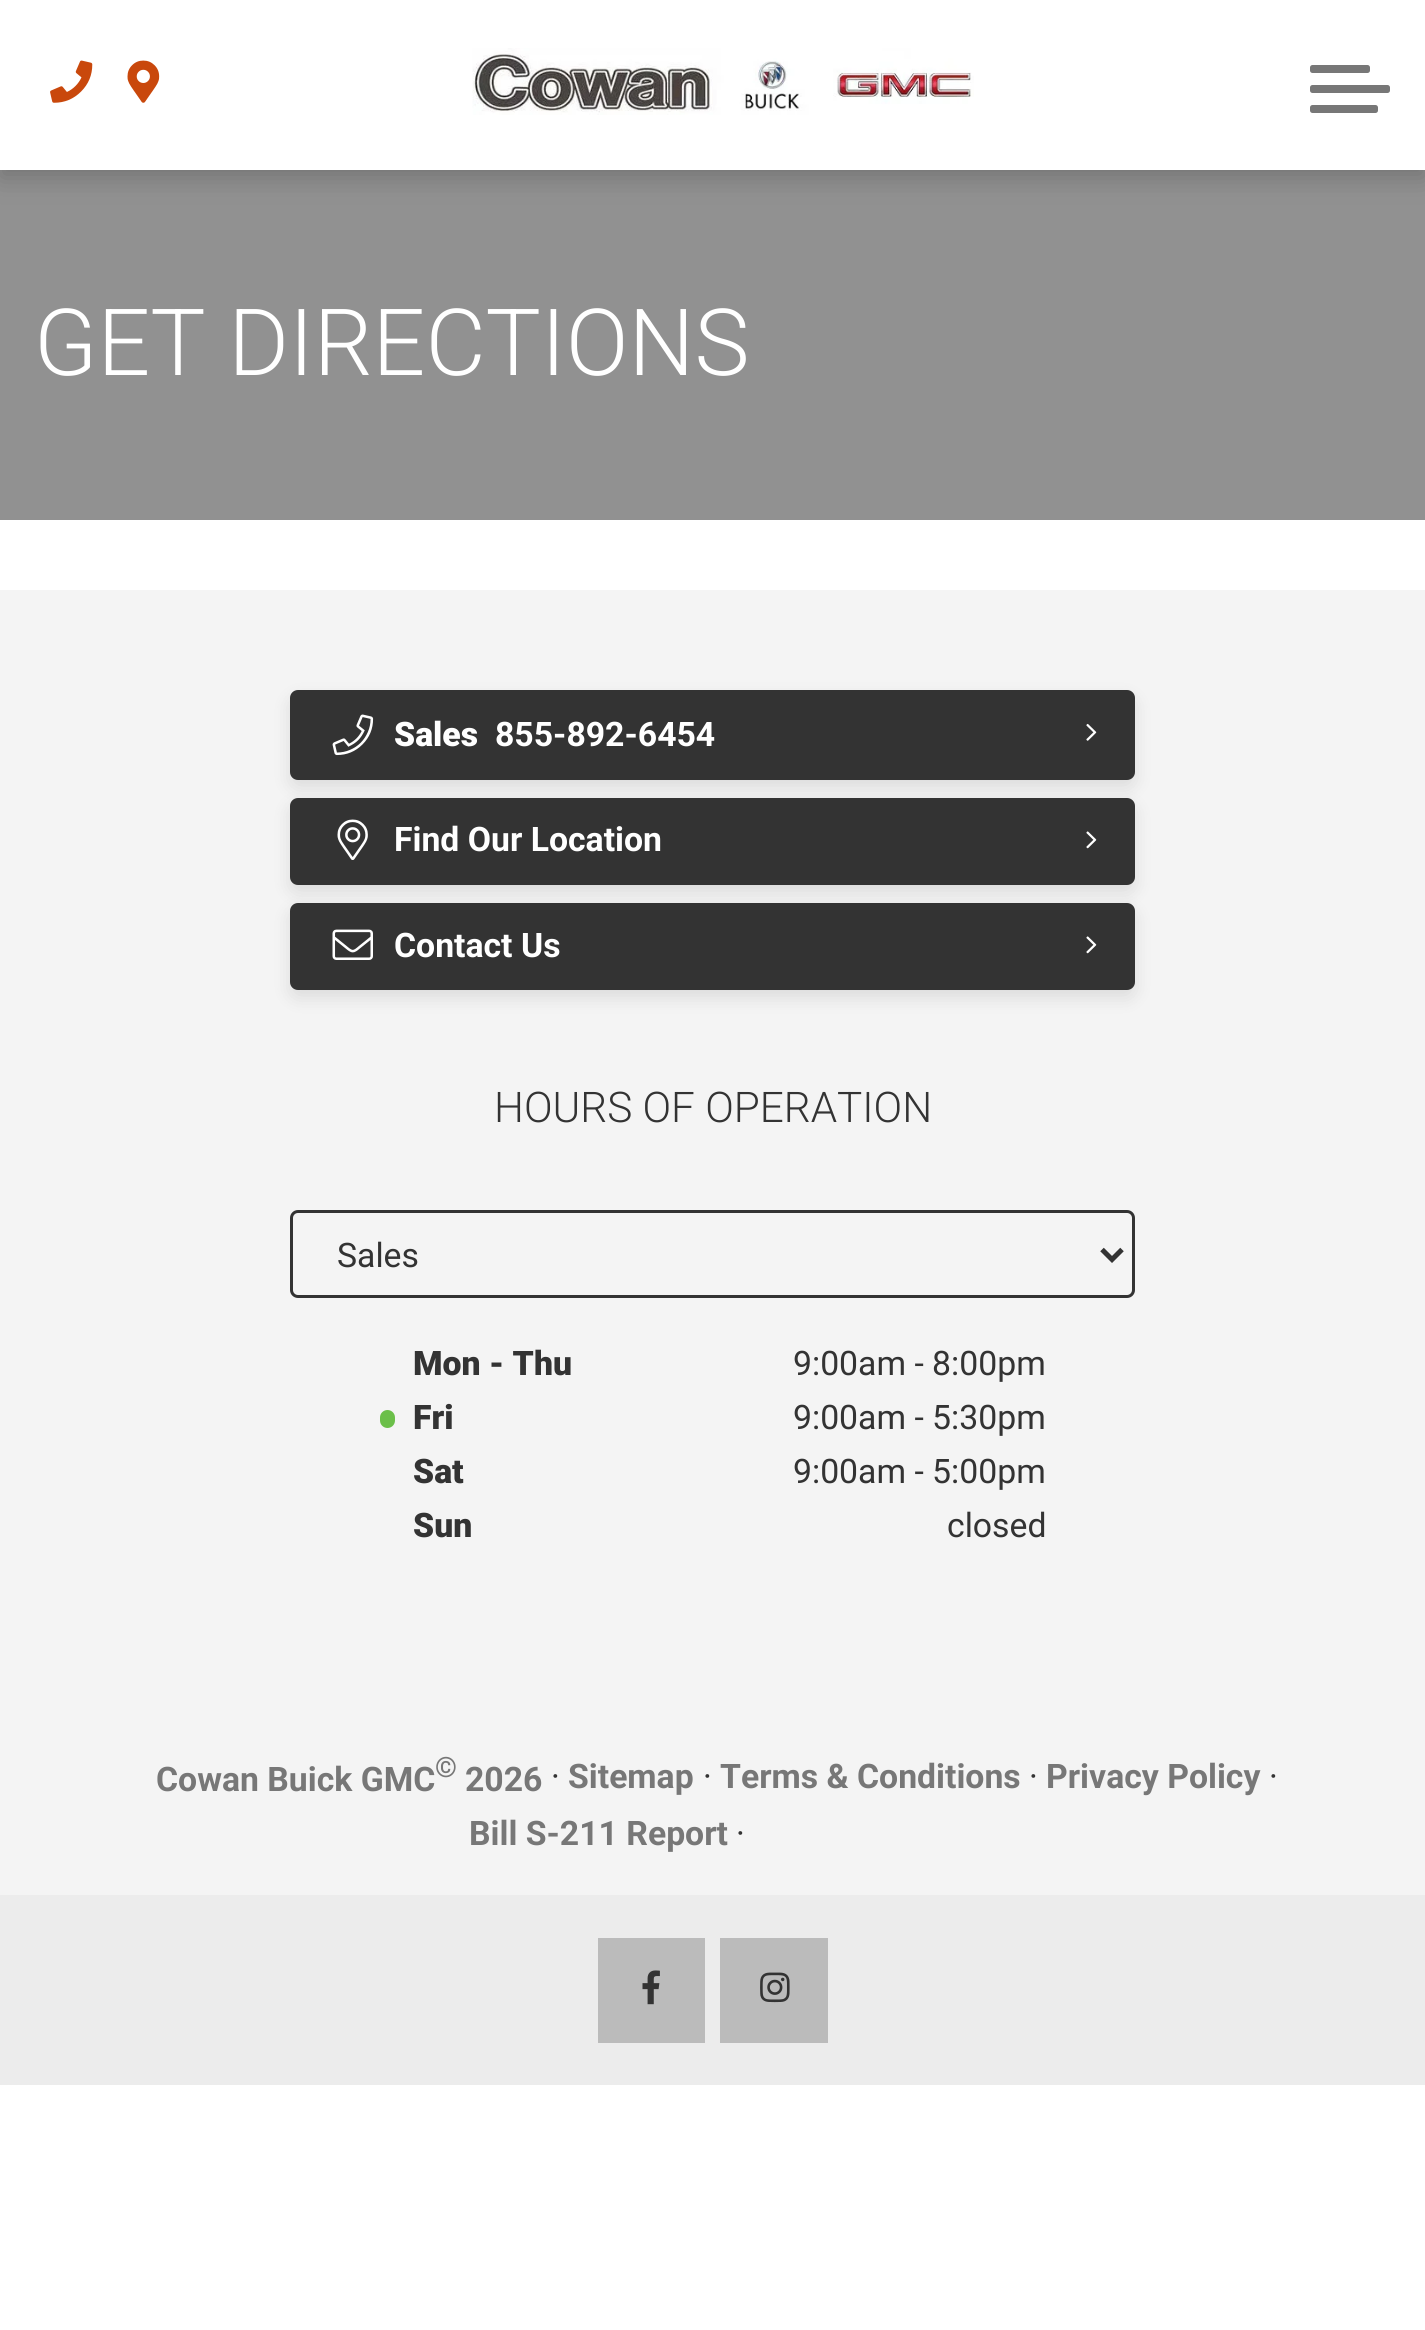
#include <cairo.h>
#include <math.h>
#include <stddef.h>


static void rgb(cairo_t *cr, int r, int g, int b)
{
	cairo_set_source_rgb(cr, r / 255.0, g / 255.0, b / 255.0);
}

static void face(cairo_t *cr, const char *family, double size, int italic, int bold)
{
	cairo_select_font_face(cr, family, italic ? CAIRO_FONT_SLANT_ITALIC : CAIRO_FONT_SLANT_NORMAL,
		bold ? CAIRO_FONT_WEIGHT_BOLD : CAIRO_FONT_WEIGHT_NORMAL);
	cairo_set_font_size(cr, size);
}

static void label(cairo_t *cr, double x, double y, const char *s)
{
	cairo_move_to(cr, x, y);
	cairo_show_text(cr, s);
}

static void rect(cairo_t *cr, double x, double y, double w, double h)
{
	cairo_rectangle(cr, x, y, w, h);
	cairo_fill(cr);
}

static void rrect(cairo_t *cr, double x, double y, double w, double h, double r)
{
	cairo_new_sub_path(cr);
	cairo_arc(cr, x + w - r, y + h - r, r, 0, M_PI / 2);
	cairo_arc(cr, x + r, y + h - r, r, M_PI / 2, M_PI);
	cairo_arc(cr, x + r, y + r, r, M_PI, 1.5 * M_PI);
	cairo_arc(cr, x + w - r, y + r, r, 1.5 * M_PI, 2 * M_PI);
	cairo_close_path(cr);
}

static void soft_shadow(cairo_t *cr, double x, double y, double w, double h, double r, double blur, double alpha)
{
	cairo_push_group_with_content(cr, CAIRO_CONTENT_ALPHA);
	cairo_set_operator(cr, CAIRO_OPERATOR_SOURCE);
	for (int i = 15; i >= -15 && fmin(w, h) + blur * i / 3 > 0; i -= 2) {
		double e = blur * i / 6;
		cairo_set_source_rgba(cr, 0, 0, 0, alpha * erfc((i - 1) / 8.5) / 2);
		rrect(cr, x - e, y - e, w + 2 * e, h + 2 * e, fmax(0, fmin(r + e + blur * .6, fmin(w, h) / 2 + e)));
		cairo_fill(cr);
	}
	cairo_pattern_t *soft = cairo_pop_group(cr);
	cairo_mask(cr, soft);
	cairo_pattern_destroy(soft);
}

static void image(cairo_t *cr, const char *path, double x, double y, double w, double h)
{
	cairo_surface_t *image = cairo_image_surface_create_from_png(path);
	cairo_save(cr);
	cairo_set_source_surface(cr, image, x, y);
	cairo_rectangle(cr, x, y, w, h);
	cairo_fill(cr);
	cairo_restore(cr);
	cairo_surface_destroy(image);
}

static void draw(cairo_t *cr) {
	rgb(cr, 255, 255, 255);
	cairo_paint(cr);
	rgb(cr, 145, 145, 145);
	rect(cr, 0, 170, 1425, 350);
	rgb(cr, 0, 0, 0);
	soft_shadow(cr, 0, 8, 1425, 170, 0, 12.5, 0.2);
	rgb(cr, 255, 255, 255);
	rect(cr, 0, 0, 1425, 170);
	image(cr, "image0.png", 50, 60, 43, 43);
	image(cr, "image1.png", 127, 60, 33, 43);
	image(cr, "image2.png", 472, 48, 502, 67);
	rgb(cr, 119, 119, 119);
	rrect(cr, 1310, 85, 80, 8, 2.5);
	cairo_fill(cr);
	rrect(cr, 1310, 65, 60, 8, 2.5);
	cairo_fill(cr);
	rrect(cr, 1310, 105, 68, 8, 2.5);
	cairo_fill(cr);
	face(cr, "Roboto Light", 92.75, 0, 0);
	rgb(cr, 255, 255, 255);
	label(cr, 34, 375, "GET DIRECTIONS");
	rgb(cr, 244, 244, 244);
	rect(cr, 0, 590, 1425, 1305);
	rgb(cr, 0, 0, 0);
	soft_shadow(cr, 290, 698, 845, 90, 8, 8.5, 0.1);
	rgb(cr, 51, 51, 51);
	rrect(cr, 290, 690, 845, 90, 8);
	cairo_fill(cr);
	image(cr, "image3.png", 332, 714, 42, 42);
	face(cr, "Roboto Black", 33.75, 0, 0);
	rgb(cr, 255, 255, 255);
	label(cr, 394, 746, "Sales");
	face(cr, "Roboto", 33.75, 0, 1);
	label(cr, 495, 746, "855-892-6454");
	image(cr, "image4.png", 1086, 723, 11, 18);
	rgb(cr, 0, 0, 0);
	soft_shadow(cr, 290, 805, 845, 88, 8, 8.5, 0.1);
	rgb(cr, 51, 51, 51);
	rrect(cr, 290, 798, 845, 87, 8);
	cairo_fill(cr);
	image(cr, "image5.png", 337, 819, 31, 41);
	rgb(cr, 255, 255, 255);
	label(cr, 394, 851, "Find Our Location");
	image(cr, "image6.png", 1086, 831, 11, 18);
	rgb(cr, 0, 0, 0);
	soft_shadow(cr, 290, 910, 845, 88, 8, 8.5, 0.1);
	rgb(cr, 51, 51, 51);
	rrect(cr, 290, 903, 845, 87, 8);
	cairo_fill(cr);
	image(cr, "image7.png", 332, 929, 41, 31);
	rgb(cr, 255, 255, 255);
	label(cr, 394, 957, "Contact Us");
	image(cr, "image6.png", 1086, 936, 11, 18);
	face(cr, "Roboto Light", 42.25, 0, 0);
	rgb(cr, 51, 51, 51);
	label(cr, 494, 1122, "HOURS OF OPERATION");
	rrect(cr, 291.5, 1211.5, 842, 85, 6.5);
	cairo_set_line_width(cr, 3);
	cairo_stroke(cr);
	cairo_new_path(cr);
	cairo_move_to(cr, 1102, 1249.5);
	cairo_line_to(cr, 1112, 1259.5);
	cairo_line_to(cr, 1122, 1249.5);
	cairo_set_line_width(cr, 5);
	cairo_stroke(cr);
	face(cr, "Roboto", 33.75, 0, 0);
	label(cr, 337, 1267, "Sales");
	face(cr, "Roboto Black", 33.75, 0, 0);
	label(cr, 413, 1375, "Mon - Thu");
	face(cr, "Roboto", 33.75, 0, 0);
	label(cr, 793, 1375, "9:00am - 8:00pm");
	rgb(cr, 107, 191, 73);
	rrect(cr, 380, 1410, 15, 18, 7.5);
	cairo_fill(cr);
	face(cr, "Roboto Black", 33.75, 0, 0);
	rgb(cr, 51, 51, 51);
	label(cr, 413, 1429, "Fri");
	face(cr, "Roboto", 33.75, 0, 0);
	label(cr, 793, 1429, "9:00am - 5:30pm");
	face(cr, "Roboto Black", 33.75, 0, 0);
	label(cr, 413, 1483, "Sat");
	face(cr, "Roboto", 33.75, 0, 0);
	label(cr, 793, 1483, "9:00am - 5:00pm");
	face(cr, "Roboto Black", 33.75, 0, 0);
	label(cr, 413, 1537, "Sun");
	face(cr, "Roboto", 33.75, 0, 0);
	label(cr, 947, 1537, "closed");
	face(cr, "Roboto", 33.75, 0, 1);
	rgb(cr, 119, 119, 119);
	label(cr, 156, 1791, "Cowan Buick GMC");
	face(cr, "Roboto", 28, 0, 1);
	label(cr, 435, 1777, "©");
	face(cr, "Roboto", 33.75, 0, 1);
	label(cr, 465, 1791, "2026");
	face(cr, "Roboto", 33.75, 0, 0);
	rgb(cr, 51, 51, 51);
	label(cr, 551, 1788, "·");
	face(cr, "Roboto", 33.75, 0, 1);
	rgb(cr, 119, 119, 119);
	label(cr, 568, 1788, "Sitemap");
	face(cr, "Roboto", 33.75, 0, 0);
	rgb(cr, 51, 51, 51);
	label(cr, 703, 1788, "·");
	face(cr, "Roboto", 33.75, 0, 1);
	rgb(cr, 119, 119, 119);
	label(cr, 720, 1788, "Terms & Conditions");
	face(cr, "Roboto", 33.75, 0, 0);
	rgb(cr, 51, 51, 51);
	label(cr, 1029, 1788, "·");
	face(cr, "Roboto", 33.75, 0, 1);
	rgb(cr, 119, 119, 119);
	label(cr, 1046, 1788, "Privacy Policy");
	face(cr, "Roboto", 33.75, 0, 0);
	rgb(cr, 51, 51, 51);
	label(cr, 1269, 1788, "·");
	face(cr, "Roboto", 33.75, 0, 1);
	rgb(cr, 119, 119, 119);
	label(cr, 469, 1845, "Bill S-211 Report");
	face(cr, "Roboto", 33.75, 0, 0);
	rgb(cr, 51, 51, 51);
	label(cr, 736, 1845, "·");
	rgb(cr, 236, 236, 236);
	rect(cr, 0, 1895, 1425, 190);
	rgb(cr, 187, 187, 187);
	rect(cr, 598, 1938, 107, 105);
	image(cr, "image8.png", 642, 1970, 18, 35);
	rect(cr, 720, 1938, 108, 105);
	image(cr, "image9.png", 760, 1972, 30, 31);
}

int main(void) {
	cairo_surface_t *surface = cairo_image_surface_create(CAIRO_FORMAT_RGB24, 1425, 2330);
	cairo_t *cr = cairo_create(surface);
	cairo_font_options_t *options = cairo_font_options_create();
	cairo_font_options_set_hint_metrics(options, CAIRO_HINT_METRICS_OFF);
	cairo_font_options_set_hint_style(options, CAIRO_HINT_STYLE_NONE);
	cairo_set_font_options(cr, options);
	cairo_set_miter_limit(cr, 4);
	draw(cr);
	cairo_surface_write_to_png(surface, "render.png");
	cairo_font_options_destroy(options);
	cairo_destroy(cr);
	cairo_surface_destroy(surface);
	return 0;
}
